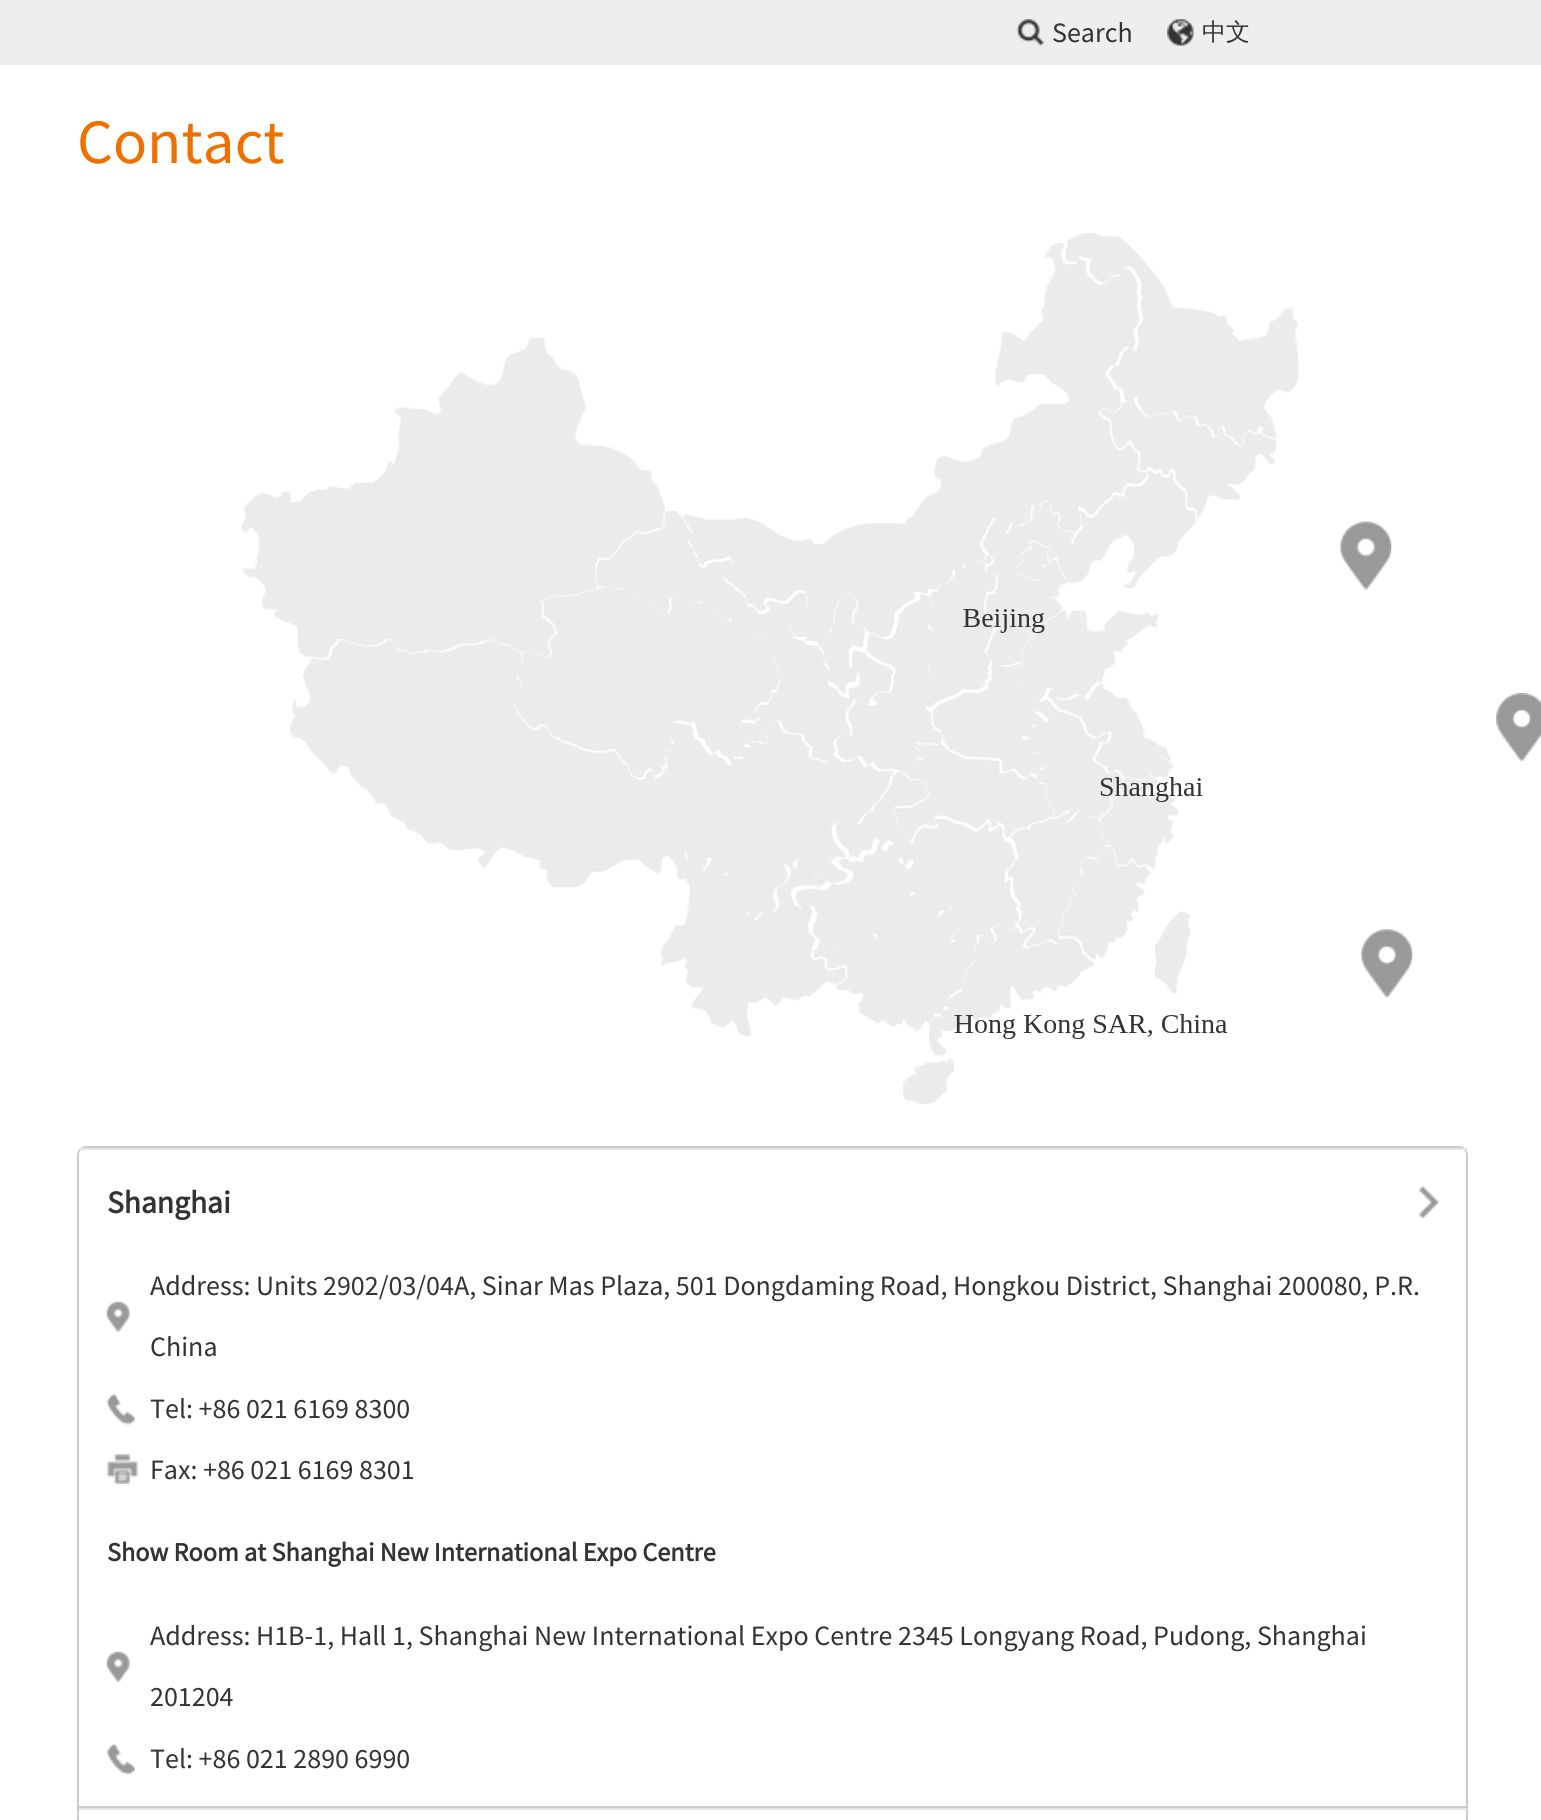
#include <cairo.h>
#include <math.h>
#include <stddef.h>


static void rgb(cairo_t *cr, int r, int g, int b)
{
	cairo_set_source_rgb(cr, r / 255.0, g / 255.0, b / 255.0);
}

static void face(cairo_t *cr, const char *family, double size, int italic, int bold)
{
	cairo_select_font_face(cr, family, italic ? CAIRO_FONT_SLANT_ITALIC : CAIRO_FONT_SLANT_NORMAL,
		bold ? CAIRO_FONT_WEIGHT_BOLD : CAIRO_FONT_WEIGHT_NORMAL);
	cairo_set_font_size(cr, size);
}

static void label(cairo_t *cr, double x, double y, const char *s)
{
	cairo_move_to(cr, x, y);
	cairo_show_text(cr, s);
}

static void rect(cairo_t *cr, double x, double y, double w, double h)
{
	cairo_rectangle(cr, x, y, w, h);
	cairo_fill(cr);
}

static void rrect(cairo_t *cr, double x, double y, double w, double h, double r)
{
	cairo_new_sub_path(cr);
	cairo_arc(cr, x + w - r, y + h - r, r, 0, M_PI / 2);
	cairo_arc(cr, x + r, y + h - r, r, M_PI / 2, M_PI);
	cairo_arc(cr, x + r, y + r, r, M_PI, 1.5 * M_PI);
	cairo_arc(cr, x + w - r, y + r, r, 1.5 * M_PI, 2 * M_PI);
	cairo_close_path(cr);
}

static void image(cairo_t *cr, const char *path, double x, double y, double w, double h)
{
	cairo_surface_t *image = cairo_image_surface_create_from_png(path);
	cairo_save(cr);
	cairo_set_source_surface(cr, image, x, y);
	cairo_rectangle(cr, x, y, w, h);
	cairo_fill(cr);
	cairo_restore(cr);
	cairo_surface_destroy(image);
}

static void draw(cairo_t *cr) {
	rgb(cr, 255, 255, 255);
	cairo_paint(cr);
	rgb(cr, 238, 238, 238);
	rect(cr, 0, 0, 1541, 65);
	image(cr, "image0.png", 1016, 19, 29, 27);
	face(cr, "Source Sans Pro", 28, 0, 0);
	rgb(cr, 51, 51, 51);
	label(cr, 1052, 42, "Search");
	image(cr, "image1.png", 1167, 19, 27, 27);
	face(cr, "WenQuanYi Zen Hei Medium", 24, 0, 0);
	label(cr, 1202, 40, "中文");
	face(cr, "Source Sans Pro", 63, 0, 0);
	rgb(cr, 238, 113, 0);
	label(cr, 77, 163, "Contact");
	image(cr, "image2.png", 241, 233, 1058, 871);
	image(cr, "image3.png", 1340, 521, 52, 69);
	image(cr, "image4.png", 1496, 693, 45, 69);
	image(cr, "image5.png", 1361, 929, 52, 69);
	rrect(cr, 78, 1147, 1389, 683, 8);
	rgb(cr, 204, 204, 204);
	cairo_stroke(cr);
	rgb(cr, 229, 229, 229);
	rect(cr, 79, 1148, 1388, 2);
	rgb(cr, 204, 204, 204);
	rect(cr, 79, 1806, 1388, 2);
	image(cr, "image6.png", 1419, 1186, 20, 32);
	face(cr, "Source Sans Pro", 31.5, 0, 1);
	rgb(cr, 51, 51, 51);
	label(cr, 107, 1213, "Shanghai");
	image(cr, "image7.png", 106, 1301, 24, 31);
	face(cr, "Source Sans Pro", 28, 0, 0);
	label(cr, 150, 1295, "Address: Units 2902/03/04A, Sinar Mas Plaza, 501 Dongdaming Road, Hongkou District, Shanghai 200080, P.R.");
	label(cr, 150, 1356, "China");
	image(cr, "image8.png", 106, 1394, 29, 31);
	label(cr, 150, 1418, "Tel: +86 021 6169 8300");
	image(cr, "image9.png", 106, 1454, 33, 30);
	label(cr, 150, 1479, "Fax: +86 021 6169 8301");
	face(cr, "Source Sans Pro", 26.25, 0, 1);
	label(cr, 107, 1561, "Show Room at Shanghai New International Expo Centre");
	image(cr, "image7.png", 106, 1651, 24, 31);
	face(cr, "Source Sans Pro", 28, 0, 0);
	label(cr, 150, 1645, "Address: H1B-1, Hall 1, Shanghai New International Expo Centre 2345 Longyang Road, Pudong, Shanghai");
	label(cr, 150, 1706, "201204");
	image(cr, "image8.png", 106, 1744, 29, 31);
	label(cr, 150, 1768, "Tel: +86 021 2890 6990");
	rgb(cr, 229, 229, 229);
	rect(cr, 79, 1808, 1388, 2);
}

int main(void) {
	cairo_surface_t *surface = cairo_image_surface_create(CAIRO_FORMAT_RGB24, 1541, 1820);
	cairo_t *cr = cairo_create(surface);
	cairo_font_options_t *options = cairo_font_options_create();
	cairo_font_options_set_hint_metrics(options, CAIRO_HINT_METRICS_OFF);
	cairo_font_options_set_hint_style(options, CAIRO_HINT_STYLE_NONE);
	cairo_set_font_options(cr, options);
	cairo_set_miter_limit(cr, 4);
	draw(cr);
	cairo_surface_write_to_png(surface, "render.png");
	cairo_font_options_destroy(options);
	cairo_destroy(cr);
	cairo_surface_destroy(surface);
	return 0;
}
